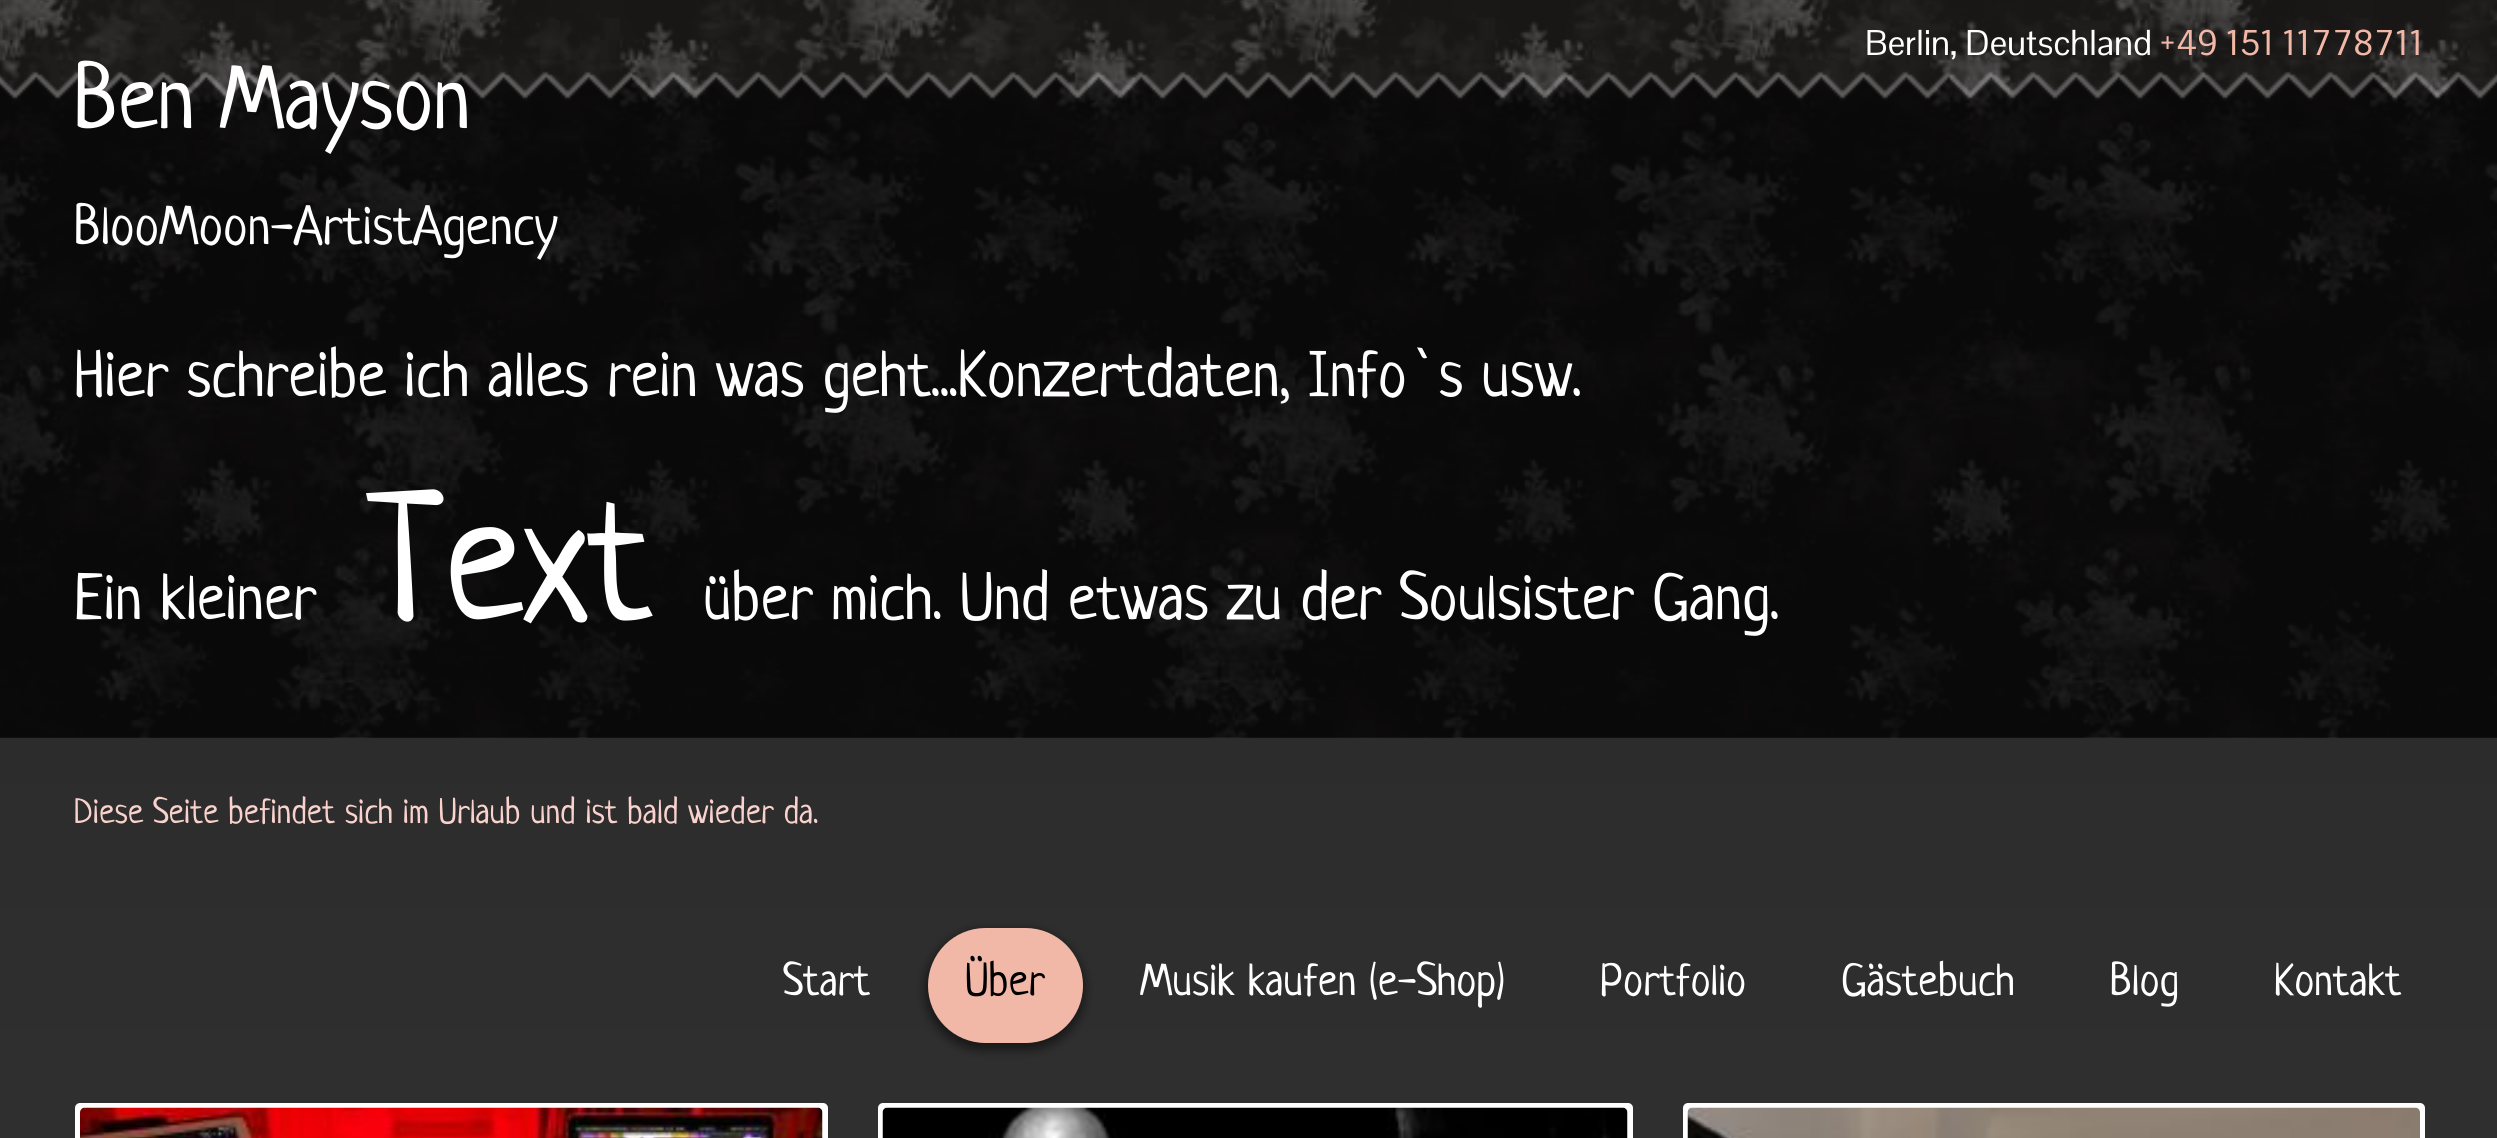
#include <cairo.h>
#include <math.h>
#include <stddef.h>


static void rgb(cairo_t *cr, int r, int g, int b)
{
	cairo_set_source_rgb(cr, r / 255.0, g / 255.0, b / 255.0);
}

static void face(cairo_t *cr, const char *family, double size, int italic, int bold)
{
	cairo_select_font_face(cr, family, italic ? CAIRO_FONT_SLANT_ITALIC : CAIRO_FONT_SLANT_NORMAL,
		bold ? CAIRO_FONT_WEIGHT_BOLD : CAIRO_FONT_WEIGHT_NORMAL);
	cairo_set_font_size(cr, size);
}

static void label(cairo_t *cr, double x, double y, const char *s)
{
	cairo_move_to(cr, x, y);
	cairo_show_text(cr, s);
}

static void rect(cairo_t *cr, double x, double y, double w, double h)
{
	cairo_rectangle(cr, x, y, w, h);
	cairo_fill(cr);
}

static void rrect(cairo_t *cr, double x, double y, double w, double h, double r)
{
	cairo_new_sub_path(cr);
	cairo_arc(cr, x + w - r, y + h - r, r, 0, M_PI / 2);
	cairo_arc(cr, x + r, y + h - r, r, M_PI / 2, M_PI);
	cairo_arc(cr, x + r, y + r, r, M_PI, 1.5 * M_PI);
	cairo_arc(cr, x + w - r, y + r, r, 1.5 * M_PI, 2 * M_PI);
	cairo_close_path(cr);
}

static void soft_shadow(cairo_t *cr, double x, double y, double w, double h, double r, double blur, double alpha)
{
	cairo_push_group_with_content(cr, CAIRO_CONTENT_ALPHA);
	cairo_set_operator(cr, CAIRO_OPERATOR_SOURCE);
	for (int i = 15; i >= -15 && fmin(w, h) + blur * i / 3 > 0; i -= 2) {
		double e = blur * i / 6;
		cairo_set_source_rgba(cr, 0, 0, 0, alpha * erfc((i - 1) / 8.5) / 2);
		rrect(cr, x - e, y - e, w + 2 * e, h + 2 * e, fmax(0, fmin(r + e + blur * .6, fmin(w, h) / 2 + e)));
		cairo_fill(cr);
	}
	cairo_pattern_t *soft = cairo_pop_group(cr);
	cairo_mask(cr, soft);
	cairo_pattern_destroy(soft);
}

static void image(cairo_t *cr, const char *path, double x, double y, double w, double h)
{
	cairo_surface_t *image = cairo_image_surface_create_from_png(path);
	cairo_save(cr);
	cairo_set_source_surface(cr, image, x, y);
	cairo_rectangle(cr, x, y, w, h);
	cairo_fill(cr);
	cairo_restore(cr);
	cairo_surface_destroy(image);
}

static void draw(cairo_t *cr) {
	cairo_pattern_t *gradient;
	rgb(cr, 26, 23, 23);
	cairo_paint(cr);
	image(cr, "image0.png", 0, 0, 2497, 738);
	image(cr, "image1.png", 0, 71, 2497, 667);
	face(cr, "Pontano Sans", 35, 0, 0);
	rgb(cr, 255, 255, 255);
	label(cr, 1865, 55, "Berlin, Deutschland");
	rgb(cr, 241, 184, 167);
	label(cr, 2159, 55, "+49 151 11778711");
	face(cr, "Neucha", 90, 0, 0);
	rgb(cr, 255, 255, 255);
	label(cr, 74, 128, "Ben Mayson");
	face(cr, "Neucha", 55, 0, 0);
	label(cr, 74, 244, "BlooMoon-ArtistAgency");
	face(cr, "Neucha", 65, 0, 0);
	label(cr, 74, 396, "Hier schreibe ich alles rein was geht...Konzertdaten, Info`s usw.");
	label(cr, 74, 619, "Ein kleiner");
	face(cr, "Neucha", 180, 0, 0);
	label(cr, 366, 619, "Text");
	face(cr, "Neucha", 65, 0, 0);
	label(cr, 703, 619, "über mich. Und etwas zu der Soulsister Gang.");
	gradient = cairo_pattern_create_linear(1249, 737, 1249, 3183);
	cairo_pattern_add_color_stop_rgba(gradient, 0, 0.173, 0.173, 0.173, 1);
	cairo_pattern_add_color_stop_rgba(gradient, 1, 0.251, 0.251, 0.251, 1);
	cairo_set_source(cr, gradient);
	cairo_pattern_destroy(gradient);
	rect(cr, 0, 738, 2497, 400);
	face(cr, "Neucha", 35, 0, 0);
	rgb(cr, 249, 210, 205);
	label(cr, 74, 823, "Diese Seite befindet sich im Urlaub und ist bald wieder da.");
	face(cr, "Neucha", 45, 0, 0);
	rgb(cr, 255, 255, 255);
	label(cr, 783, 995, "Start");
	rgb(cr, 0, 0, 0);
	soft_shadow(cr, 925, 930, 160, 120, 60, 5, 0.5);
	rgb(cr, 241, 184, 167);
	rrect(cr, 928, 928, 155, 115, 57.5);
	cairo_fill(cr);
	rgb(cr, 0, 0, 0);
	label(cr, 965, 995, "Über");
	rgb(cr, 255, 255, 255);
	label(cr, 1140, 995, "Musik kaufen (e-Shop)");
	label(cr, 1600, 995, "Portfolio");
	label(cr, 1841, 995, "Gästebuch");
	label(cr, 2110, 995, "Blog");
	label(cr, 2274, 995, "Kontakt");
	rrect(cr, 75, 1103, 753, 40, 5);
	cairo_fill(cr);
	image(cr, "image2.png", 80, 1107, 743, 31);
	rrect(cr, 878, 1103, 755, 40, 5);
	cairo_fill(cr);
	image(cr, "image3.png", 882, 1107, 746, 31);
	rrect(cr, 1683, 1103, 742, 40, 5);
	cairo_fill(cr);
	image(cr, "image4.png", 1687, 1107, 733, 31);
}

int main(void) {
	cairo_surface_t *surface = cairo_image_surface_create(CAIRO_FORMAT_RGB24, 2497, 1138);
	cairo_t *cr = cairo_create(surface);
	cairo_font_options_t *options = cairo_font_options_create();
	cairo_font_options_set_hint_metrics(options, CAIRO_HINT_METRICS_OFF);
	cairo_font_options_set_hint_style(options, CAIRO_HINT_STYLE_NONE);
	cairo_set_font_options(cr, options);
	cairo_set_miter_limit(cr, 4);
	draw(cr);
	cairo_surface_write_to_png(surface, "render.png");
	cairo_font_options_destroy(options);
	cairo_destroy(cr);
	cairo_surface_destroy(surface);
	return 0;
}
